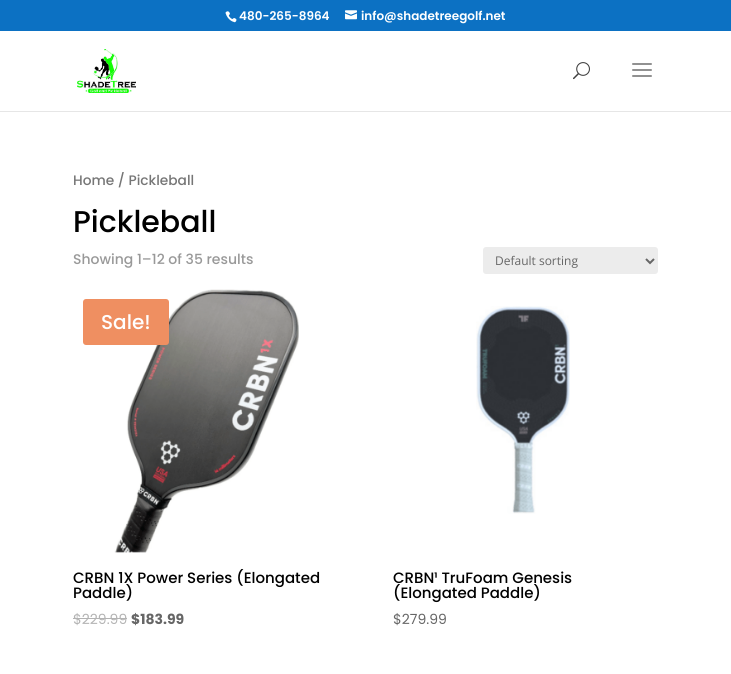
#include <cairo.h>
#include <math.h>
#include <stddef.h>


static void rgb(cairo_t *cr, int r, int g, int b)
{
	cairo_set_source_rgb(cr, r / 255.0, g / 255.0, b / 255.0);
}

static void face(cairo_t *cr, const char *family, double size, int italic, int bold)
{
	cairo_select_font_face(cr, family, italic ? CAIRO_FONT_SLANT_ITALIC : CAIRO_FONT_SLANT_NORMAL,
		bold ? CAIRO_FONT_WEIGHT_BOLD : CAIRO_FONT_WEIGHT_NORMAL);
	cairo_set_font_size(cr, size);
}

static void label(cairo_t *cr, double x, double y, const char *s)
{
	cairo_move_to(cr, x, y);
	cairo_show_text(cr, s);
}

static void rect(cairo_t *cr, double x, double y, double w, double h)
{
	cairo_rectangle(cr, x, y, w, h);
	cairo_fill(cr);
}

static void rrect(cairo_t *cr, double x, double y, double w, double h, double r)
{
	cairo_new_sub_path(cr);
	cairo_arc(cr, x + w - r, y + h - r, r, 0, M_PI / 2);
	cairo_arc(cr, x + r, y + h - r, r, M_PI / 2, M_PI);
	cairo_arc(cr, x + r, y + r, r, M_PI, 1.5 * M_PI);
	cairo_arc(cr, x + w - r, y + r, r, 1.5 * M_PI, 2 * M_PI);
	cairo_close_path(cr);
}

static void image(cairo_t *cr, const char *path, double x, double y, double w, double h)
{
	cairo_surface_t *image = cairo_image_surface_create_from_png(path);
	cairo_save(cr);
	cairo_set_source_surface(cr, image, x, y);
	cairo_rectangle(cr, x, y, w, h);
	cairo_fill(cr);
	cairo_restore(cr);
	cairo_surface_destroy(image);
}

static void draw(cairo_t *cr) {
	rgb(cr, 255, 255, 255);
	cairo_paint(cr);
	rgb(cr, 12, 113, 195);
	rect(cr, 0, 0, 731, 31);
	image(cr, "image0.png", 225, 11, 12, 12);
	face(cr, "Poppins SemiBold", 12, 0, 0);
	rgb(cr, 255, 255, 255);
	label(cr, 239, 20, "480-265-8964");
	image(cr, "image1.png", 345, 10, 12, 10);
	label(cr, 361, 20, "info@shadetreegolf.net");
	rgb(cr, 230, 230, 230);
	rect(cr, 0, 111, 731, 1);
	image(cr, "image2.png", 77, 49, 59, 44);
	image(cr, "image3.png", 573, 62, 17, 18);
	image(cr, "image4.png", 632, 63, 20, 14);
	face(cr, "Poppins Medium", 13.75, 0, 0);
	rgb(cr, 118, 118, 118);
	label(cr, 73, 185, "Home / Pickleball");
	face(cr, "Poppins Medium", 30, 0, 0);
	rgb(cr, 0, 0, 0);
	label(cr, 73, 232, "Pickleball");
	face(cr, "Poppins Medium", 14, 0, 0);
	rgb(cr, 153, 153, 153);
	label(cr, 73, 264, "Showing 1–12 of 35 results");
	rgb(cr, 236, 236, 236);
	rrect(cr, 483, 247, 175, 27, 3);
	cairo_fill(cr);
	cairo_new_path(cr);
	cairo_move_to(cr, 646, 259);
	cairo_line_to(cr, 650, 263);
	cairo_line_to(cr, 654, 259);
	rgb(cr, 102, 102, 102);
	cairo_stroke(cr);
	face(cr, "Open Sans", 12, 0, 0);
	label(cr, 495, 265, "Default sorting");
	image(cr, "image5.png", 114, 289, 185, 264);
	rgb(cr, 239, 143, 97);
	rrect(cr, 83, 299, 86, 46, 3);
	cairo_fill(cr);
	face(cr, "Poppins Medium", 20, 0, 0);
	rgb(cr, 255, 255, 255);
	label(cr, 101, 329, "Sale!");
	face(cr, "Poppins Medium", 15, 0, 0);
	rgb(cr, 0, 0, 0);
	label(cr, 73, 583, "CRBN 1X Power Series (Elongated");
	label(cr, 73, 598, "Paddle)");
	face(cr, "Poppins", 14, 0, 0);
	rgb(cr, 179, 179, 179);
	label(cr, 73, 624, "$229.99");
	rect(cr, 73, 618, 54, 1);
	face(cr, "Poppins", 14, 0, 1);
	rgb(cr, 102, 102, 102);
	label(cr, 131, 624, "$183.99");
	image(cr, "image6.png", 476, 306, 94, 208);
	face(cr, "Poppins Medium", 15, 0, 0);
	rgb(cr, 0, 0, 0);
	label(cr, 393, 583, "CRBN¹ TruFoam Genesis");
	label(cr, 393, 598, "(Elongated Paddle)");
	face(cr, "Poppins", 14, 0, 0);
	rgb(cr, 102, 102, 102);
	label(cr, 393, 624, "$279.99");
}

int main(void) {
	cairo_surface_t *surface = cairo_image_surface_create(CAIRO_FORMAT_RGB24, 731, 674);
	cairo_t *cr = cairo_create(surface);
	cairo_font_options_t *options = cairo_font_options_create();
	cairo_font_options_set_hint_metrics(options, CAIRO_HINT_METRICS_OFF);
	cairo_font_options_set_hint_style(options, CAIRO_HINT_STYLE_NONE);
	cairo_set_font_options(cr, options);
	cairo_set_miter_limit(cr, 4);
	draw(cr);
	cairo_surface_write_to_png(surface, "render.png");
	cairo_font_options_destroy(options);
	cairo_destroy(cr);
	cairo_surface_destroy(surface);
	return 0;
}
